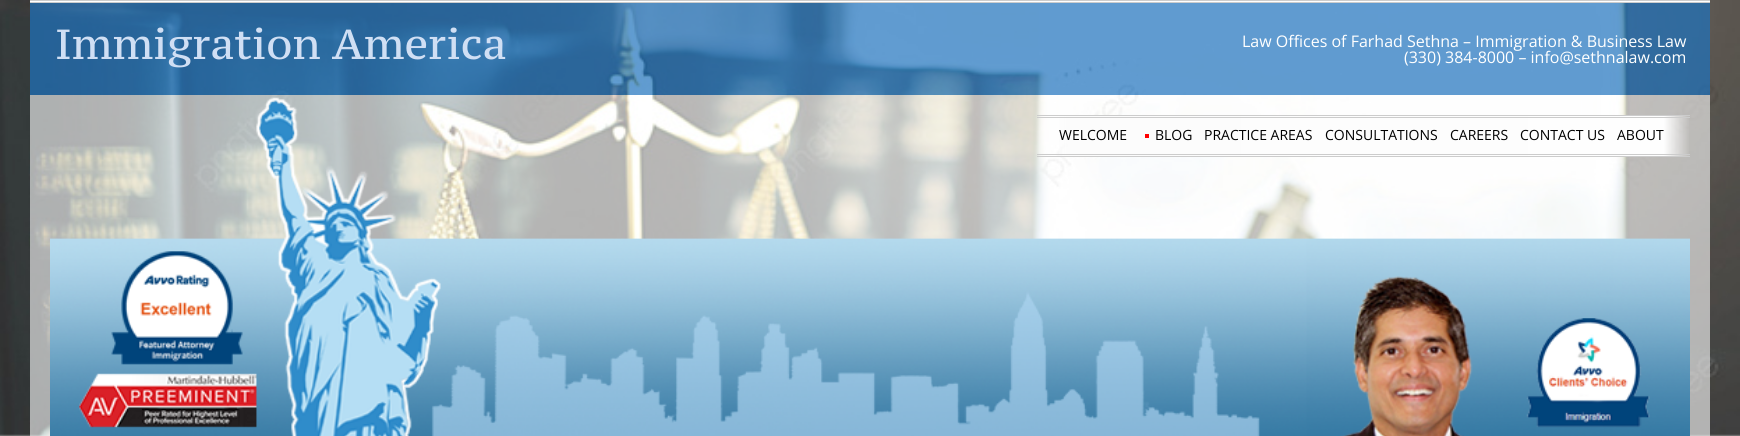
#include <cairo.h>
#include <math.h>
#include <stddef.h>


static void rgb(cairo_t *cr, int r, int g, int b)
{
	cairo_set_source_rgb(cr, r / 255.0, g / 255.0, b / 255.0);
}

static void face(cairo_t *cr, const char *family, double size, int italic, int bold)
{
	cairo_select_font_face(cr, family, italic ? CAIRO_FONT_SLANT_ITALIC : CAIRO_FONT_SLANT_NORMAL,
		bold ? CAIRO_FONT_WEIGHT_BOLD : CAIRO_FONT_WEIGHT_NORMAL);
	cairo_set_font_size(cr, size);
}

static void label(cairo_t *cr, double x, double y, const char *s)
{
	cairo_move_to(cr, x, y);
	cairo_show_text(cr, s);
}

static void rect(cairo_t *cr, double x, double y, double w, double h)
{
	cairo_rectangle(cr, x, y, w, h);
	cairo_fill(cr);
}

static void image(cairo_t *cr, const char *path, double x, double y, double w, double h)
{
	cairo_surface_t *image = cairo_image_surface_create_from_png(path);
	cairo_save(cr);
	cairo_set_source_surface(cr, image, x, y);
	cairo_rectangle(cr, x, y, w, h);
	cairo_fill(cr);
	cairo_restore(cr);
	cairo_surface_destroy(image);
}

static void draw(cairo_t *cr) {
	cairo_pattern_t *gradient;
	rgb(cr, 204, 204, 204);
	cairo_paint(cr);
	image(cr, "image0.png", 0, 0, 1740, 436);
	rgb(cr, 255, 255, 255);
	rect(cr, 30, 1, 1680, 1);
	rgb(cr, 204, 204, 204);
	rect(cr, 30, 0, 1680, 1);
	rect(cr, 30, 2, 1680, 1);
	cairo_set_source_rgba(cr, 0.118, 0.451, 0.745, 0.7);
	rect(cr, 30, 3, 1680, 92);
	face(cr, "PT Serif Caption", 42, 0, 0);
	rgb(cr, 208, 223, 244);
	label(cr, 55, 59, "Immigration America");
	face(cr, "Open Sans", 16, 0, 0);
	rgb(cr, 255, 255, 255);
	label(cr, 1242, 47, "Law Offices of Farhad Sethna – Immigration & Business Law");
	label(cr, 1404, 63, "(330) 384-8000 – info@sethnalaw.com");
	cairo_set_source_rgba(cr, 1, 1, 1, 0.6);
	rect(cr, 30, 95, 1680, 341);
	image(cr, "image1.png", 50, 97, 1640, 339);
	gradient = cairo_pattern_create_linear(1037, 136, 1690, 136);
	cairo_pattern_add_color_stop_rgba(gradient, 0.01, 0.988, 0.988, 0.988, 0);
	cairo_pattern_add_color_stop_rgba(gradient, 0.05, 0.988, 0.988, 0.988, 1);
	cairo_pattern_add_color_stop_rgba(gradient, 0.06, 0.988, 0.988, 0.988, 1);
	cairo_pattern_add_color_stop_rgba(gradient, 0.52, 0.992, 0.992, 0.992, 1);
	cairo_pattern_add_color_stop_rgba(gradient, 0.96, 0.996, 0.996, 0.996, 1);
	cairo_pattern_add_color_stop_rgba(gradient, 1, 0.996, 0.996, 0.996, 0);
	cairo_set_source(cr, gradient);
	cairo_pattern_destroy(gradient);
	rect(cr, 1059, 116, 630, 40);
	rgb(cr, 204, 204, 204);
	rect(cr, 1037, 115, 653, 1);
	rect(cr, 1037, 117, 653, 1);
	rect(cr, 1037, 154, 653, 1);
	rect(cr, 1037, 156, 653, 1);
	face(cr, "Open Sans", 14, 0, 0);
	rgb(cr, 0, 0, 0);
	label(cr, 1059, 140, "WELCOME");
	rgb(cr, 255, 0, 0);
	rect(cr, 1145, 134, 4, 4);
	rgb(cr, 0, 0, 0);
	label(cr, 1155, 140, "BLOG");
	label(cr, 1204, 140, "PRACTICE AREAS");
	label(cr, 1325, 140, "CONSULTATIONS");
	label(cr, 1450, 140, "CAREERS");
	label(cr, 1520, 140, "CONTACT US");
	label(cr, 1617, 140, "ABOUT");
}

int main(void) {
	cairo_surface_t *surface = cairo_image_surface_create(CAIRO_FORMAT_RGB24, 1740, 436);
	cairo_t *cr = cairo_create(surface);
	cairo_font_options_t *options = cairo_font_options_create();
	cairo_font_options_set_hint_metrics(options, CAIRO_HINT_METRICS_OFF);
	cairo_font_options_set_hint_style(options, CAIRO_HINT_STYLE_NONE);
	cairo_set_font_options(cr, options);
	cairo_set_miter_limit(cr, 4);
	draw(cr);
	cairo_surface_write_to_png(surface, "render.png");
	cairo_font_options_destroy(options);
	cairo_destroy(cr);
	cairo_surface_destroy(surface);
	return 0;
}
